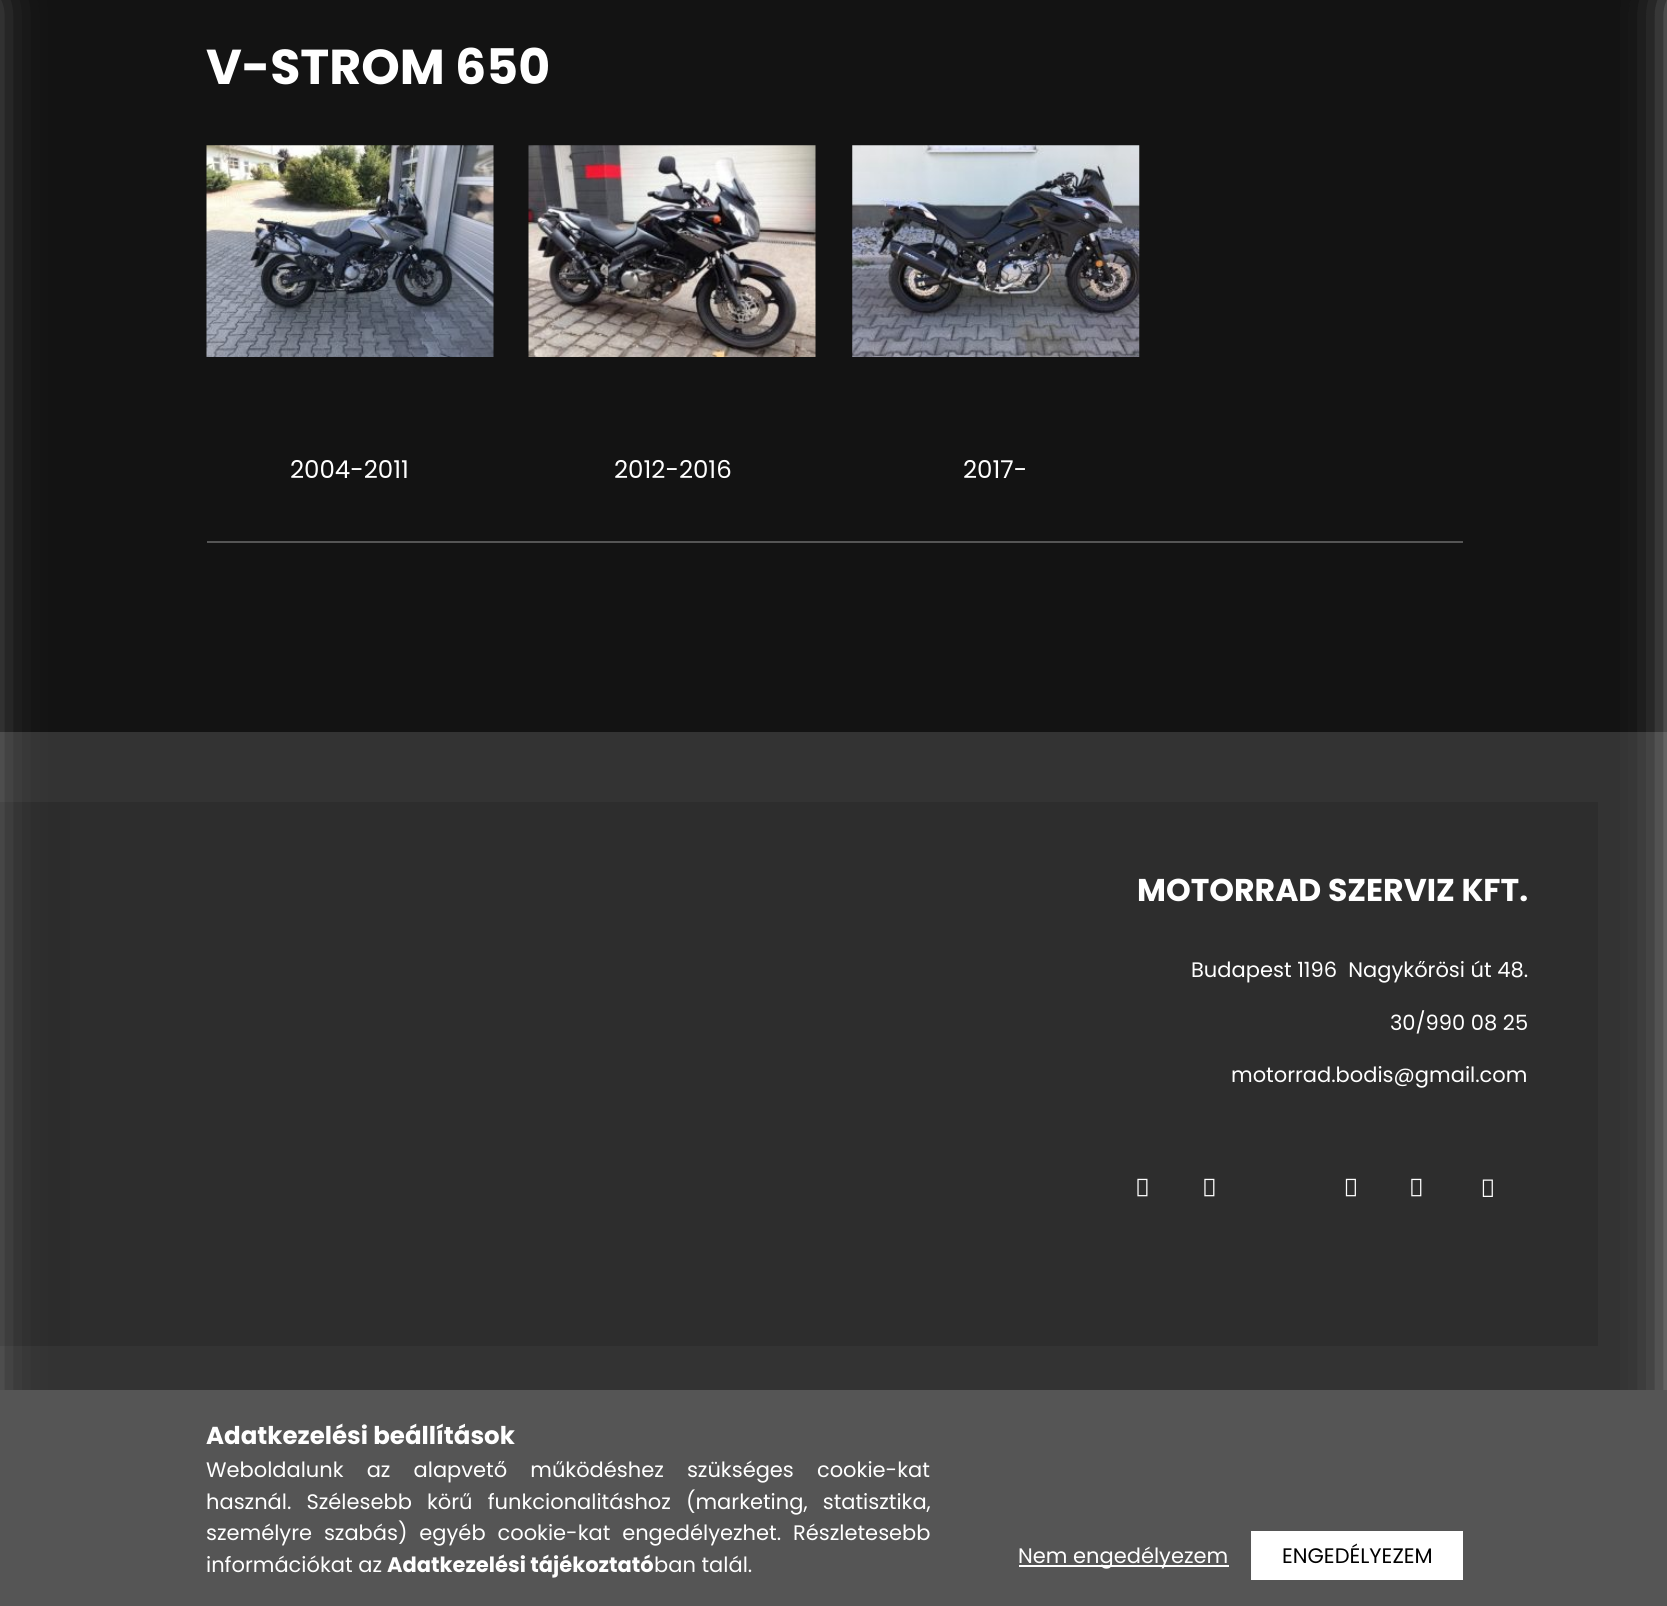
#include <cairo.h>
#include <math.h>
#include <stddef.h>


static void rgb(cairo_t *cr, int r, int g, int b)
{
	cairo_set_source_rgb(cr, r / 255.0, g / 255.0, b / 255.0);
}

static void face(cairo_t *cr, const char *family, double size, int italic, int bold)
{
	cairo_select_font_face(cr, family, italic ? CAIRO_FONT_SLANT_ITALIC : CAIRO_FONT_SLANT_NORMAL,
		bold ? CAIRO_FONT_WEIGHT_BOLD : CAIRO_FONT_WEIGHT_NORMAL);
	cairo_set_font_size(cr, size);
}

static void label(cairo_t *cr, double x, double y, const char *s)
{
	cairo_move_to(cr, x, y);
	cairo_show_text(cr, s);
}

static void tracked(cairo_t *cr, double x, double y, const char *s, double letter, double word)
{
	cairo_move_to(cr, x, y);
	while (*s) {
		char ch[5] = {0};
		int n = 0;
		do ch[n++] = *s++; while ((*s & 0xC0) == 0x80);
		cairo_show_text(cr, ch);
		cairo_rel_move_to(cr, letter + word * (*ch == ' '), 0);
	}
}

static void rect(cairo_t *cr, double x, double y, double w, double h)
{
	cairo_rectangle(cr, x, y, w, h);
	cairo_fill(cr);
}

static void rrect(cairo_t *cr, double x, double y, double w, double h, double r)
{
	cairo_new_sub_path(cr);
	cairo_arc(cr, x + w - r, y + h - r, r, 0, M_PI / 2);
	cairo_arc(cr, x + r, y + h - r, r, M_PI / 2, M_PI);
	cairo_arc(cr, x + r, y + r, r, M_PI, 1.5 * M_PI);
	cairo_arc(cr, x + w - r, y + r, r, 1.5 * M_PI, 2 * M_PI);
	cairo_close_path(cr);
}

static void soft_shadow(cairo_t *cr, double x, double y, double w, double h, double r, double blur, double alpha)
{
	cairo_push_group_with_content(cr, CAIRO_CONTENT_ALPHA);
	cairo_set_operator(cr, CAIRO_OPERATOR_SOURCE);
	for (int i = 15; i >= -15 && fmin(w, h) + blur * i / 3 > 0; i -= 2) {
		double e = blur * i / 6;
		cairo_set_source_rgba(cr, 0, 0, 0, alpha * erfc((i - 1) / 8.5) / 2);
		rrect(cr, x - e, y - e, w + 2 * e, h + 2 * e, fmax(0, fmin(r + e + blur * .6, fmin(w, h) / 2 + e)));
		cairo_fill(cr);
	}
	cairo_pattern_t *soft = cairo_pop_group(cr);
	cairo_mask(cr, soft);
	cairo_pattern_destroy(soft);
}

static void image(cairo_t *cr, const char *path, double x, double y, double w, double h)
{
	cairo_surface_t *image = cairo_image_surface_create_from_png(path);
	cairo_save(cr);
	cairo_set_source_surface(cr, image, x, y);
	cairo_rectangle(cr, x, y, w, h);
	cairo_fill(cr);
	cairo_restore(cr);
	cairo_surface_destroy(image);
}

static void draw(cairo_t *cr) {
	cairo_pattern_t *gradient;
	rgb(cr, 19, 19, 19);
	cairo_paint(cr);
	rgb(cr, 51, 51, 51);
	rect(cr, 0, 732, 1667, 658);
	rgb(cr, 44, 44, 44);
	rect(cr, 0, 802, 70, 544);
	rgb(cr, 255, 255, 255);
	soft_shadow(cr, -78, 0, 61, 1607, 0, 26, 0.5);
	soft_shadow(cr, 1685, 0, 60, 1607, 0, 26, 0.5);
	face(cr, "Poppins", 49, 0, 1);
	rgb(cr, 255, 255, 255);
	label(cr, 206, 84, "V-STROM 650");
	rgb(cr, 85, 85, 85);
	rect(cr, 207, 541, 1256, 2);
	image(cr, "image0.png", 206, 145, 288, 212);
	face(cr, "Poppins", 24.5, 0, 0);
	rgb(cr, 255, 255, 255);
	label(cr, 290, 478, "2004-2011");
	image(cr, "image1.png", 528, 145, 288, 212);
	label(cr, 614, 478, "2012-2016");
	image(cr, "image2.png", 852, 145, 288, 212);
	label(cr, 963, 478, "2017-");
	rgb(cr, 255, 255, 255);
	soft_shadow(cr, 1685, 0, 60, 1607, 0, 26, 0.5);
	rgb(cr, 45, 45, 45);
	rect(cr, 70, 802, 1528, 544);
	face(cr, "Poppins", 31.5, 0, 1);
	rgb(cr, 255, 255, 255);
	label(cr, 1137, 901, "MOTORRAD SZERVIZ KFT.");
	face(cr, "Poppins", 21, 0, 0);
	label(cr, 1191, 977, "Budapest 1196  Nagykőrösi út 48.");
	label(cr, 1390, 1030, "30/990 08 25");
	label(cr, 1231, 1082, "motorrad.bodis@gmail.com");
	image(cr, "image3.png", 1137, 1178, 11, 19);
	image(cr, "image4.png", 1204, 1178, 11, 19);
	image(cr, "image5.png", 1345, 1178, 11, 19);
	image(cr, "image6.png", 1411, 1178, 11, 19);
	image(cr, "image7.png", 1482, 1179, 11, 18);
	rgb(cr, 85, 85, 85);
	rect(cr, 0, 1390, 1667, 216);
	face(cr, "Poppins", 24.5, 0, 1);
	rgb(cr, 255, 255, 255);
	label(cr, 206, 1444, "Adatkezelési beállítások");
	face(cr, "Poppins", 21, 0, 0);
	tracked(cr, 206, 1477, "Weboldalunk az alapvető működéshez szükséges cookie-kat", 0, 17.5);
	tracked(cr, 206, 1509, "használ. Szélesebb körű funkcionalitáshoz (marketing, statisztika,", 0, 9.5);
	tracked(cr, 206, 1540, "személyre szabás) egyéb cookie-kat engedélyezhet. Részletesebb", 0, 6.25);
	label(cr, 206, 1572, "információkat az");
	face(cr, "Poppins", 21, 0, 1);
	label(cr, 387, 1572, "Adatkezelési tájékoztató");
	face(cr, "Poppins", 21, 0, 0);
	label(cr, 654, 1572, "ban talál.");
	rect(cr, 1019, 1565, 210, 2);
	label(cr, 1018, 1563, "Nem engedélyezem");
	gradient = cairo_pattern_create_linear(828, 1556, 1463, 1556);
	cairo_pattern_add_color_stop_rgba(gradient, 0, 0.333, 0.333, 0.333, 1);
	cairo_pattern_add_color_stop_rgba(gradient, 0.33, 0.333, 0.333, 0.333, 1);
	cairo_pattern_add_color_stop_rgba(gradient, 0.67, 1, 1, 1, 1);
	cairo_pattern_add_color_stop_rgba(gradient, 1, 1, 1, 1, 1);
	cairo_set_source(cr, gradient);
	cairo_pattern_destroy(gradient);
	rect(cr, 1251, 1531, 212, 49);
	rgb(cr, 0, 0, 0);
	label(cr, 1282, 1563, "ENGEDÉLYEZEM");
}

int main(void) {
	cairo_surface_t *surface = cairo_image_surface_create(CAIRO_FORMAT_RGB24, 1667, 1606);
	cairo_t *cr = cairo_create(surface);
	cairo_font_options_t *options = cairo_font_options_create();
	cairo_font_options_set_hint_metrics(options, CAIRO_HINT_METRICS_OFF);
	cairo_font_options_set_hint_style(options, CAIRO_HINT_STYLE_NONE);
	cairo_set_font_options(cr, options);
	cairo_set_miter_limit(cr, 4);
	draw(cr);
	cairo_surface_write_to_png(surface, "render.png");
	cairo_font_options_destroy(options);
	cairo_destroy(cr);
	cairo_surface_destroy(surface);
	return 0;
}
